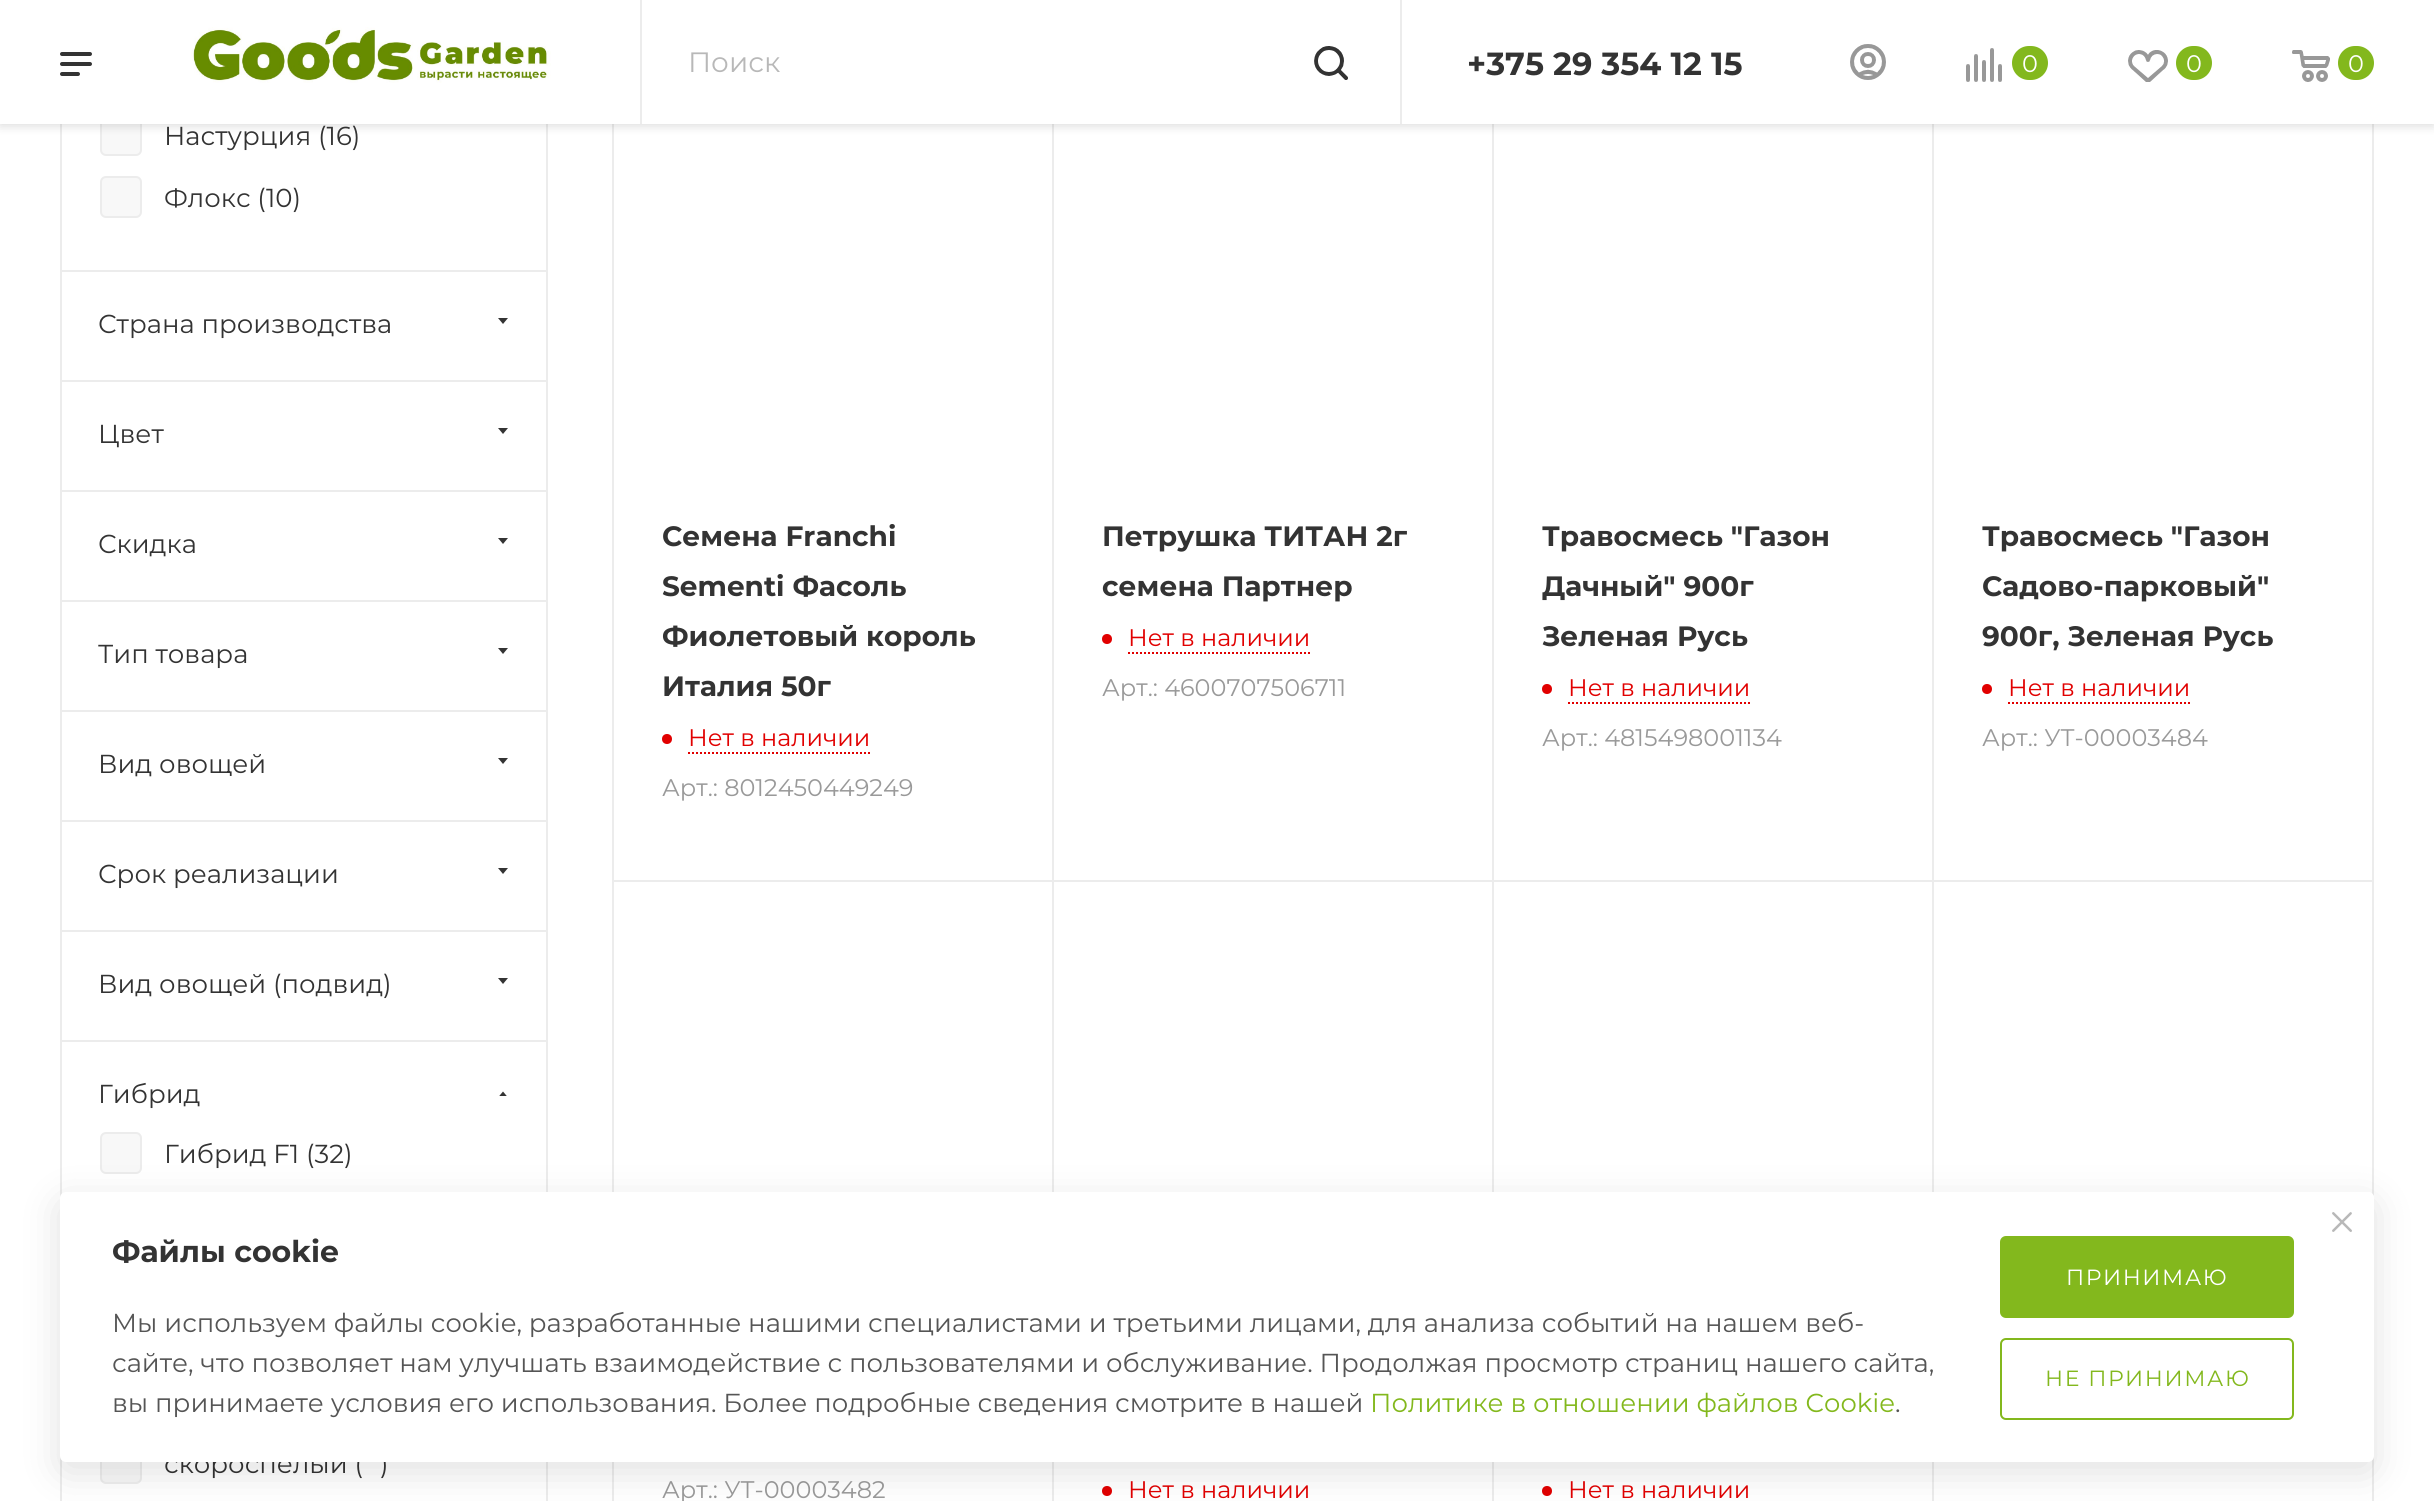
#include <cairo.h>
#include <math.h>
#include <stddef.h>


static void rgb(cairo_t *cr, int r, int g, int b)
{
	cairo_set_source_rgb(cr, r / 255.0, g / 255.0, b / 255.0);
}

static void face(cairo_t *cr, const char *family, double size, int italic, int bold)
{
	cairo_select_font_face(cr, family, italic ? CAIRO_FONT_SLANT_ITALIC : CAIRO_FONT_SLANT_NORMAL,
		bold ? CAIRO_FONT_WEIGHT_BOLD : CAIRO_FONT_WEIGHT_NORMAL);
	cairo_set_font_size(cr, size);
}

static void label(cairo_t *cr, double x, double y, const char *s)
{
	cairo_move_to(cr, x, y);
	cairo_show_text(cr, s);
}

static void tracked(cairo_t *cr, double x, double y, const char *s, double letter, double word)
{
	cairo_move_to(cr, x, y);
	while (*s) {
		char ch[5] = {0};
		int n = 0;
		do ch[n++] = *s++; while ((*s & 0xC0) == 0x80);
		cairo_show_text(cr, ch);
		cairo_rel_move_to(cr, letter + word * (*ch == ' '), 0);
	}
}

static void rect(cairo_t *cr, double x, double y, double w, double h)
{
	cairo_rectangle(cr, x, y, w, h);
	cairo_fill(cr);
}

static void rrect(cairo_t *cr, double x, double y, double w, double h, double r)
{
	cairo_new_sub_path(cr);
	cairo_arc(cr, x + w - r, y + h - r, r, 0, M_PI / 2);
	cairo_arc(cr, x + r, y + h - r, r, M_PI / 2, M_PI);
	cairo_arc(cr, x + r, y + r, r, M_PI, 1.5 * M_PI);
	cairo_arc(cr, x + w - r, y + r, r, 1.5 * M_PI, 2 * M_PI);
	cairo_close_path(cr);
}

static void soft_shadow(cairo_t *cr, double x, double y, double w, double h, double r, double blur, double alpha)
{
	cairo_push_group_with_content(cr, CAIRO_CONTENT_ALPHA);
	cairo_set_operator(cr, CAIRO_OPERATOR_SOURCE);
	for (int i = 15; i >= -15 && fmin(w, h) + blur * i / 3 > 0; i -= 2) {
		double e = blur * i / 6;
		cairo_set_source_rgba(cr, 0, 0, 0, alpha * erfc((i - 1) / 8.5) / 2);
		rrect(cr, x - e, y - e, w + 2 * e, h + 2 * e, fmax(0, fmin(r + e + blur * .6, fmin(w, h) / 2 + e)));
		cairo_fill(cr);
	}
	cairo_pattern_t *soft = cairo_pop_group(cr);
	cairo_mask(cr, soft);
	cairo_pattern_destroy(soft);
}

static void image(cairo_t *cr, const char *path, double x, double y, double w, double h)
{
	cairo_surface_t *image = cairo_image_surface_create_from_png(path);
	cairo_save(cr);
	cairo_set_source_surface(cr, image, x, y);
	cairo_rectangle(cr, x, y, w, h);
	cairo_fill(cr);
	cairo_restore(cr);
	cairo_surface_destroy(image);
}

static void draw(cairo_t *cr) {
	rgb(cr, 255, 255, 255);
	cairo_paint(cr);
	cairo_rectangle(cr, 61, -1, 486, 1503);
	rgb(cr, 236, 236, 236);
	cairo_stroke(cr);
	rgb(cr, 248, 248, 248);
	rrect(cr, 101, 115, 40, 40, 5);
	cairo_fill_preserve(cr);
	rgb(cr, 236, 236, 236);
	cairo_stroke(cr);
	cairo_rectangle(cr, 613, 79, 440, 802);
	cairo_stroke(cr);
	cairo_rectangle(cr, 1053, 79, 440, 802);
	cairo_stroke(cr);
	cairo_rectangle(cr, 1493, 79, 440, 802);
	cairo_stroke(cr);
	cairo_rectangle(cr, 1933, 79, 440, 802);
	cairo_stroke(cr);
	rgb(cr, 0, 0, 0);
	soft_shadow(cr, 0, 2, 2434, 124, 0, 5, 0.14);
	rgb(cr, 255, 255, 255);
	rect(cr, 0, 0, 2434, 124);
	image(cr, "image0.png", 60, 52, 32, 24);
	image(cr, "image1.png", 191, 27, 360, 56);
	rgb(cr, 236, 236, 236);
	rect(cr, 1400, 0, 2, 124);
	rect(cr, 640, 0, 2, 124);
	face(cr, "Montserrat", 28, 0, 0);
	rgb(cr, 184, 184, 184);
	label(cr, 688, 72, "Поиск");
	image(cr, "image2.png", 1314, 46, 34, 34);
	face(cr, "Montserrat", 32, 0, 1);
	rgb(cr, 51, 51, 51);
	label(cr, 1467, 75, "+375 29 354 12 15");
	image(cr, "image3.png", 1850, 44, 36, 36);
	image(cr, "image4.png", 1966, 48, 36, 34);
	rgb(cr, 131, 184, 29);
	rrect(cr, 2012, 46, 36, 34, 17);
	cairo_fill(cr);
	face(cr, "Montserrat", 24, 0, 0);
	rgb(cr, 255, 255, 255);
	label(cr, 2022, 72, "0");
	image(cr, "image5.png", 2128, 50, 40, 32);
	rgb(cr, 131, 184, 29);
	rrect(cr, 2176, 46, 36, 34, 17);
	cairo_fill(cr);
	rgb(cr, 255, 255, 255);
	label(cr, 2186, 72, "0");
	image(cr, "image6.png", 2292, 50, 38, 32);
	rgb(cr, 131, 184, 29);
	rrect(cr, 2338, 46, 36, 34, 17);
	cairo_fill(cr);
	rgb(cr, 255, 255, 255);
	label(cr, 2348, 72, "0");
	rgb(cr, 236, 236, 236);
	rect(cr, 62, 270, 484, 2);
	face(cr, "Montserrat", 26, 0, 0);
	rgb(cr, 51, 51, 51);
	label(cr, 164, 145, "Настурция (16)");
	rgb(cr, 248, 248, 248);
	rrect(cr, 101, 177, 40, 40, 5);
	cairo_fill_preserve(cr);
	rgb(cr, 236, 236, 236);
	cairo_stroke(cr);
	rgb(cr, 51, 51, 51);
	label(cr, 164, 207, "Флокс (10)");
	rgb(cr, 236, 236, 236);
	rect(cr, 62, 380, 484, 2);
	rgb(cr, 51, 51, 51);
	label(cr, 98, 333, "Страна производства");
	cairo_set_fill_rule(cr, CAIRO_FILL_RULE_EVEN_ODD);
	cairo_new_path(cr);
	cairo_move_to(cr, 498, 318);
	cairo_line_to(cr, 508, 318);
	cairo_line_to(cr, 503, 324);
	cairo_close_path(cr);
	cairo_fill(cr);
	rgb(cr, 236, 236, 236);
	rect(cr, 62, 490, 484, 2);
	rgb(cr, 51, 51, 51);
	label(cr, 98, 443, "Цвет");
	cairo_new_path(cr);
	cairo_move_to(cr, 498, 428);
	cairo_line_to(cr, 508, 428);
	cairo_line_to(cr, 503, 434);
	cairo_close_path(cr);
	cairo_fill(cr);
	rgb(cr, 236, 236, 236);
	rect(cr, 62, 600, 484, 2);
	rgb(cr, 51, 51, 51);
	label(cr, 98, 553, "Скидка");
	cairo_new_path(cr);
	cairo_move_to(cr, 498, 538);
	cairo_line_to(cr, 508, 538);
	cairo_line_to(cr, 503, 544);
	cairo_close_path(cr);
	cairo_fill(cr);
	rgb(cr, 236, 236, 236);
	rect(cr, 62, 710, 484, 2);
	rgb(cr, 51, 51, 51);
	label(cr, 98, 663, "Тип товара");
	cairo_new_path(cr);
	cairo_move_to(cr, 498, 648);
	cairo_line_to(cr, 508, 648);
	cairo_line_to(cr, 503, 654);
	cairo_close_path(cr);
	cairo_fill(cr);
	rgb(cr, 236, 236, 236);
	rect(cr, 62, 820, 484, 2);
	rgb(cr, 51, 51, 51);
	label(cr, 98, 773, "Вид овощей");
	cairo_new_path(cr);
	cairo_move_to(cr, 498, 758);
	cairo_line_to(cr, 508, 758);
	cairo_line_to(cr, 503, 764);
	cairo_close_path(cr);
	cairo_fill(cr);
	rgb(cr, 236, 236, 236);
	rect(cr, 62, 930, 484, 2);
	rgb(cr, 51, 51, 51);
	label(cr, 98, 883, "Срок реализации");
	cairo_new_path(cr);
	cairo_move_to(cr, 498, 868);
	cairo_line_to(cr, 508, 868);
	cairo_line_to(cr, 503, 874);
	cairo_close_path(cr);
	cairo_fill(cr);
	rgb(cr, 236, 236, 236);
	rect(cr, 62, 1040, 484, 2);
	rgb(cr, 51, 51, 51);
	label(cr, 98, 993, "Вид овощей (подвид)");
	cairo_new_path(cr);
	cairo_move_to(cr, 498, 978);
	cairo_line_to(cr, 508, 978);
	cairo_line_to(cr, 503, 984);
	cairo_close_path(cr);
	cairo_fill(cr);
	label(cr, 98, 1103, "Гибрид");
	cairo_save(cr);
	cairo_set_fill_rule(cr, CAIRO_FILL_RULE_WINDING);
	cairo_rectangle(cr, 498, 1090, 10, 6);
	cairo_clip(cr);
	cairo_set_fill_rule(cr, CAIRO_FILL_RULE_EVEN_ODD);
	cairo_new_path(cr);
	cairo_move_to(cr, 508, 1097.5);
	cairo_line_to(cr, 498, 1097.5);
	cairo_line_to(cr, 503, 1091.5);
	cairo_close_path(cr);
	cairo_fill(cr);
	cairo_restore(cr);
	rgb(cr, 248, 248, 248);
	rrect(cr, 101, 1133, 40, 40, 5);
	cairo_fill_preserve(cr);
	rgb(cr, 236, 236, 236);
	cairo_stroke(cr);
	rgb(cr, 51, 51, 51);
	label(cr, 164, 1163, "Гибрид F1 (32)");
	rgb(cr, 248, 248, 248);
	rrect(cr, 101, 1443, 40, 40, 5);
	cairo_fill_preserve(cr);
	rgb(cr, 236, 236, 236);
	cairo_stroke(cr);
	rgb(cr, 51, 51, 51);
	label(cr, 164, 1473, "скороспелый (");
	label(cr, 380, 1473, ")");
	face(cr, "Montserrat", 28, 0, 1);
	label(cr, 662, 546, "Семена Franchi");
	label(cr, 662, 596, "Sementi Фасоль");
	label(cr, 662, 646, "Фиолетовый король");
	label(cr, 662, 696, "Италия 50г");
	rgb(cr, 225, 0, 0);
	cairo_new_path(cr);
	cairo_arc(cr, 667, 739, 5, 0, 2 * M_PI);
	cairo_fill(cr);
	cairo_new_path(cr);
	cairo_move_to(cr, 688, 753);
	cairo_line_to(cr, 870, 753);
	cairo_set_dash(cr, (double[]){2, 2}, 2, 0);
	cairo_stroke(cr);
	face(cr, "Montserrat", 24, 0, 0);
	label(cr, 688, 746, "Нет в наличии");
	rgb(cr, 153, 153, 153);
	label(cr, 662, 796, "Арт.: 8012450449249");
	face(cr, "Montserrat", 28, 0, 1);
	rgb(cr, 51, 51, 51);
	label(cr, 1102, 546, "Петрушка ТИТАН 2г");
	label(cr, 1102, 596, "семена Партнер");
	rgb(cr, 225, 0, 0);
	cairo_new_path(cr);
	cairo_arc(cr, 1107, 639, 5, 0, 2 * M_PI);
	cairo_fill(cr);
	cairo_new_path(cr);
	cairo_move_to(cr, 1128, 653);
	cairo_line_to(cr, 1310, 653);
	cairo_stroke(cr);
	face(cr, "Montserrat", 24, 0, 0);
	label(cr, 1128, 646, "Нет в наличии");
	rgb(cr, 153, 153, 153);
	label(cr, 1102, 696, "Арт.: 4600707506711");
	face(cr, "Montserrat", 28, 0, 1);
	rgb(cr, 51, 51, 51);
	label(cr, 1542, 546, "Травосмесь \"Газон");
	label(cr, 1542, 596, "Дачный\" 900г");
	label(cr, 1542, 646, "Зеленая Русь");
	rgb(cr, 225, 0, 0);
	cairo_new_path(cr);
	cairo_arc(cr, 1547, 689, 5, 0, 2 * M_PI);
	cairo_fill(cr);
	cairo_new_path(cr);
	cairo_move_to(cr, 1568, 703);
	cairo_line_to(cr, 1750, 703);
	cairo_stroke(cr);
	face(cr, "Montserrat", 24, 0, 0);
	label(cr, 1568, 696, "Нет в наличии");
	rgb(cr, 153, 153, 153);
	label(cr, 1542, 746, "Арт.: 4815498001134");
	face(cr, "Montserrat", 28, 0, 1);
	rgb(cr, 51, 51, 51);
	label(cr, 1982, 546, "Травосмесь \"Газон");
	label(cr, 1982, 596, "Садово-парковый\"");
	label(cr, 1982, 646, "900г, Зеленая Русь");
	rgb(cr, 225, 0, 0);
	cairo_new_path(cr);
	cairo_arc(cr, 1987, 689, 5, 0, 2 * M_PI);
	cairo_fill(cr);
	cairo_new_path(cr);
	cairo_move_to(cr, 2008, 703);
	cairo_line_to(cr, 2190, 703);
	cairo_stroke(cr);
	face(cr, "Montserrat", 24, 0, 0);
	label(cr, 2008, 696, "Нет в наличии");
	rgb(cr, 153, 153, 153);
	label(cr, 1982, 746, "Арт.: УТ-00003484");
	cairo_rectangle(cr, 613, 881, 440, 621);
	rgb(cr, 236, 236, 236);
	cairo_set_dash(cr, NULL, 0, 0);
	cairo_stroke(cr);
	rgb(cr, 153, 153, 153);
	label(cr, 662, 1498, "Арт.: УТ-00003482");
	cairo_rectangle(cr, 1053, 881, 440, 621);
	rgb(cr, 236, 236, 236);
	cairo_stroke(cr);
	rgb(cr, 225, 0, 0);
	cairo_arc(cr, 1107, 1491, 5, 0, 2 * M_PI);
	cairo_fill(cr);
	label(cr, 1128, 1498, "Нет в наличии");
	cairo_rectangle(cr, 1493, 881, 440, 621);
	rgb(cr, 236, 236, 236);
	cairo_stroke(cr);
	rgb(cr, 225, 0, 0);
	cairo_arc(cr, 1547, 1491, 5, 0, 2 * M_PI);
	cairo_fill(cr);
	label(cr, 1568, 1498, "Нет в наличии");
	cairo_rectangle(cr, 1933, 881, 440, 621);
	rgb(cr, 236, 236, 236);
	cairo_stroke(cr);
	rgb(cr, 0, 0, 0);
	soft_shadow(cr, 60, 1202, 2314, 270, 6, 20, 0.12);
	rgb(cr, 255, 255, 255);
	rrect(cr, 60, 1192, 2314, 270, 6);
	cairo_fill(cr);
	cairo_new_path(cr);
	cairo_move_to(cr, 2310, 1192);
	cairo_line_to(cr, 2368, 1192);
	cairo_curve_to(cr, 2371.5, 1192, 2374, 1194.5, 2374, 1198);
	cairo_line_to(cr, 2374, 1256);
	cairo_line_to(cr, 2316, 1256);
	cairo_curve_to(cr, 2312.5, 1256, 2310, 1253.5, 2310, 1250);
	cairo_close_path(cr);
	cairo_fill(cr);
	image(cr, "image7.png", 2332, 1212, 20, 20);
	face(cr, "Montserrat", 30, 0, 1);
	rgb(cr, 51, 51, 51);
	label(cr, 112, 1262, "Файлы cookie");
	face(cr, "Montserrat", 26, 0, 0);
	rgb(cr, 85, 85, 85);
	label(cr, 112, 1332, "Мы используем файлы cookie, разработанные нашими специалистами и третьими лицами, для анализа событий на нашем веб-");
	label(cr, 112, 1372, "сайте, что позволяет нам улучшать взаимодействие с пользователями и обслуживание. Продолжая просмотр страниц нашего сайта,");
	label(cr, 112, 1412, "вы принимаете условия его использования. Более подробные сведения смотрите в нашей");
	rgb(cr, 131, 184, 29);
	label(cr, 1370, 1412, "Политике в отношении файлов Cookie");
	rgb(cr, 85, 85, 85);
	label(cr, 1895, 1412, ".");
	rgb(cr, 131, 184, 29);
	rrect(cr, 2001, 1237, 292, 80, 5);
	cairo_fill_preserve(cr);
	cairo_stroke(cr);
	face(cr, "Montserrat", 22, 0, 0);
	rgb(cr, 255, 255, 255);
	tracked(cr, 2066, 1285, "ПРИНИМАЮ", 1.6, 0);
	rrect(cr, 2001, 1339, 292, 80, 5);
	rgb(cr, 131, 184, 29);
	cairo_stroke(cr);
	tracked(cr, 2045, 1386, "НЕ ПРИНИМАЮ", 1.6, 0);
}

int main(void) {
	cairo_surface_t *surface = cairo_image_surface_create(CAIRO_FORMAT_RGB24, 2434, 1501);
	cairo_t *cr = cairo_create(surface);
	cairo_font_options_t *options = cairo_font_options_create();
	cairo_font_options_set_hint_metrics(options, CAIRO_HINT_METRICS_OFF);
	cairo_font_options_set_hint_style(options, CAIRO_HINT_STYLE_NONE);
	cairo_set_font_options(cr, options);
	cairo_set_miter_limit(cr, 4);
	draw(cr);
	cairo_surface_write_to_png(surface, "render.png");
	cairo_font_options_destroy(options);
	cairo_destroy(cr);
	cairo_surface_destroy(surface);
	return 0;
}
